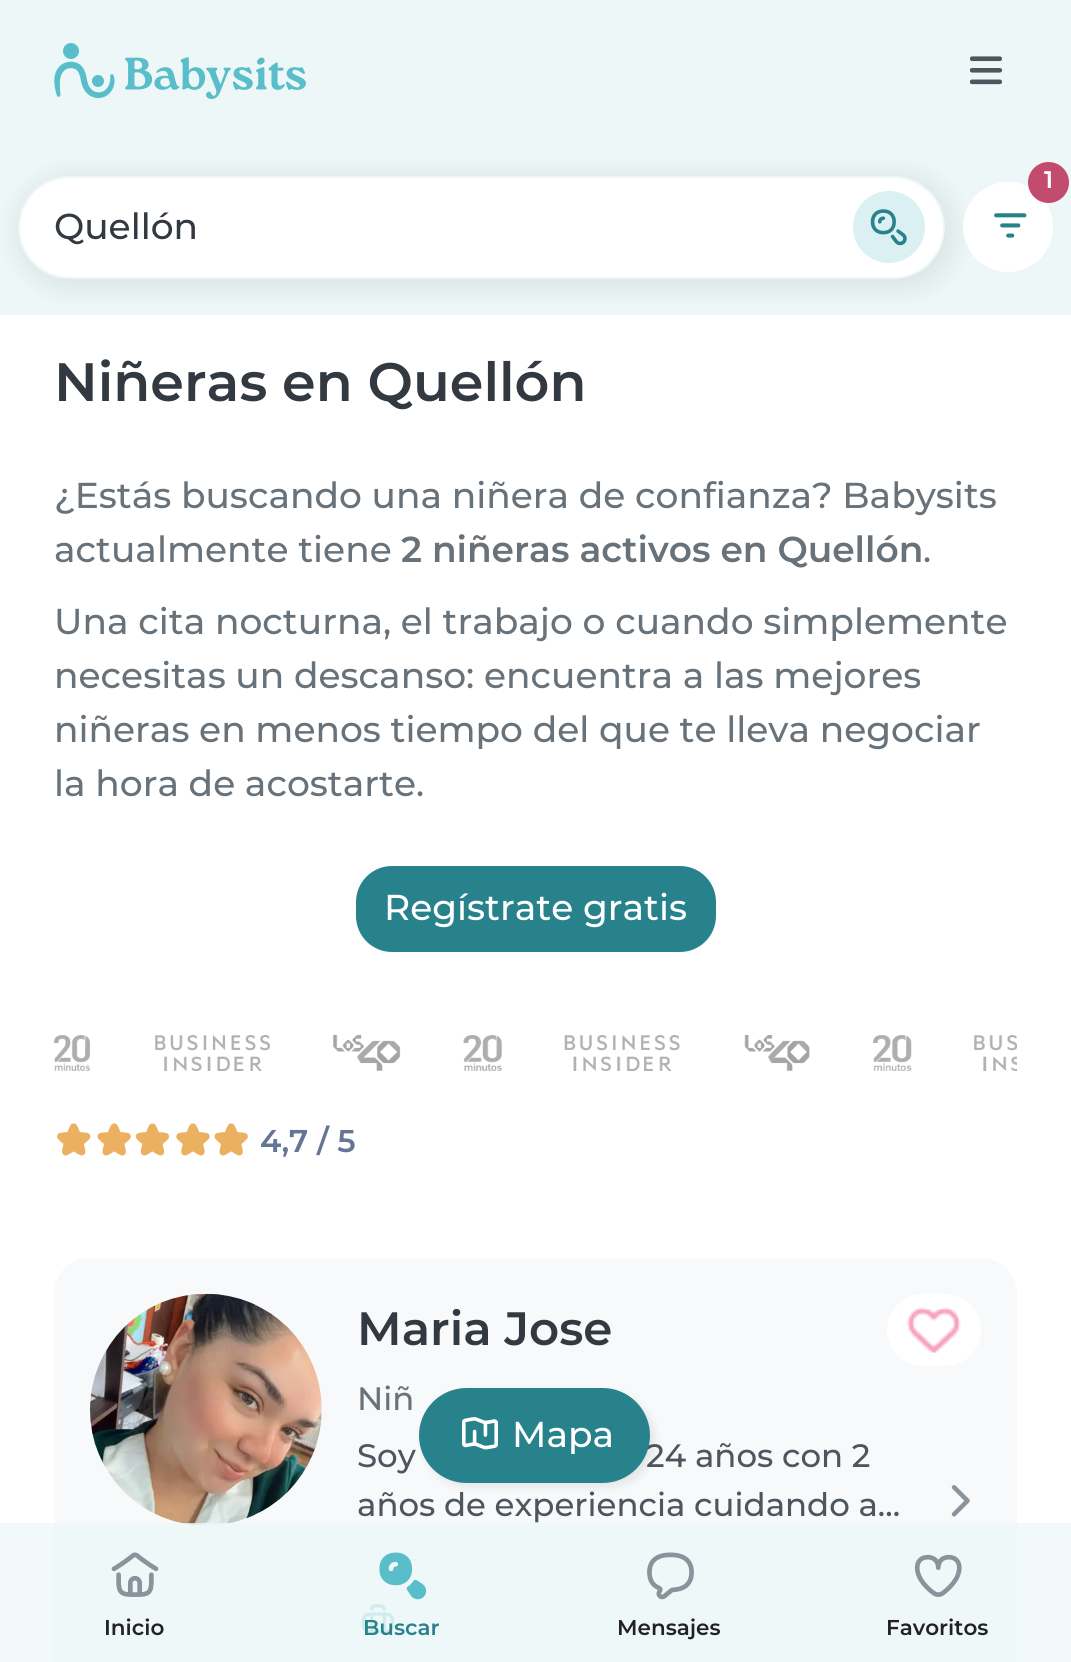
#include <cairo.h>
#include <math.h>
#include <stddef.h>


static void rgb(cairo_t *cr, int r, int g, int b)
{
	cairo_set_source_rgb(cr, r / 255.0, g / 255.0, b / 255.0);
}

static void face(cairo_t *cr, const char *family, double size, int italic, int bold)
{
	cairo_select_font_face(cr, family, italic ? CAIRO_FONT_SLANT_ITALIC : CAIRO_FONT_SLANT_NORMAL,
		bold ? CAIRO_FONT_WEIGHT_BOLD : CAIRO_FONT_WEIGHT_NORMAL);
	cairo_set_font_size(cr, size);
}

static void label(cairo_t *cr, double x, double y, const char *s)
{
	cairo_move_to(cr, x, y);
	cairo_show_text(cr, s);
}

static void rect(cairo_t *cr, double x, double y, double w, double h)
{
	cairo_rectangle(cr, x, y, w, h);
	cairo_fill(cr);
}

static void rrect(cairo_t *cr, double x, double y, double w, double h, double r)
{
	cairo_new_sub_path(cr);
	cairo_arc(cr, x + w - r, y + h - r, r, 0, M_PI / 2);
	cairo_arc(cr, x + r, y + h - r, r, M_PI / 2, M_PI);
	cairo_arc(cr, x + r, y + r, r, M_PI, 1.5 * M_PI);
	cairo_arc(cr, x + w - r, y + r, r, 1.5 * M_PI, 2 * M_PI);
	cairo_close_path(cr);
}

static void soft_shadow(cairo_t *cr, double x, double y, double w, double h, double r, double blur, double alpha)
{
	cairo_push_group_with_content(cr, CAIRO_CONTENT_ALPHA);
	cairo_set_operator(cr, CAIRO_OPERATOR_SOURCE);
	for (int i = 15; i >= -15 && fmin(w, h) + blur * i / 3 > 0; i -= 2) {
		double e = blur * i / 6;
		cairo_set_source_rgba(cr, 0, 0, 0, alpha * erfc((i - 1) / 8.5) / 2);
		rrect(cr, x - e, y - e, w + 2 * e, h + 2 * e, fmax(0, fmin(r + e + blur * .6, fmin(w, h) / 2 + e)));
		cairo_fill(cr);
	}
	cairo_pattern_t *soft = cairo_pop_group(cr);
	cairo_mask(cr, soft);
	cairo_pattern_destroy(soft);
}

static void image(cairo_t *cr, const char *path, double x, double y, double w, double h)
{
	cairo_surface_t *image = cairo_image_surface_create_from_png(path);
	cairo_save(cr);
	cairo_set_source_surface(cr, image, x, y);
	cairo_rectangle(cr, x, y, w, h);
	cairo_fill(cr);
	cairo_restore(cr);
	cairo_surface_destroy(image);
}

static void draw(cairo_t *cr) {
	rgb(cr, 255, 255, 255);
	cairo_paint(cr);
	rgb(cr, 237, 247, 248);
	rect(cr, 0, 140, 1071, 175);
	rgb(cr, 0, 0, 0);
	soft_shadow(cr, 18, 176, 936, 112, 56, 13.5, 0.08);
	rgb(cr, 237, 247, 248);
	rect(cr, 0, 0, 1071, 140);
	image(cr, "image0.png", 54, 43, 252, 56);
	image(cr, "image1.png", 970, 56, 33, 29);
	rgb(cr, 255, 255, 255);
	cairo_arc(cr, 1008, 227, 45, 0, 2 * M_PI);
	cairo_fill(cr);
	rgb(cr, 195, 75, 112);
	cairo_arc(cr, 1048.5, 182.5, 20.5, 0, 2 * M_PI);
	cairo_fill(cr);
	face(cr, "Montserrat SemiBold", 24, 0, 0);
	rgb(cr, 255, 255, 255);
	label(cr, 1044, 188, "1");
	image(cr, "image2.png", 994, 213, 33, 25);
	rrect(cr, 19, 177, 925, 101, 50.5);
	cairo_fill_preserve(cr);
	rgb(cr, 237, 247, 248);
	cairo_stroke(cr);
	face(cr, "Montserrat Medium", 36, 0, 0);
	rgb(cr, 50, 57, 64);
	label(cr, 54, 239, "Quellón");
	rgb(cr, 218, 240, 242);
	cairo_new_path(cr);
	cairo_arc(cr, 889, 227, 36, 0, 2 * M_PI);
	cairo_fill(cr);
	image(cr, "image3.png", 870, 209, 37, 37);
	face(cr, "Montserrat SemiBold", 54, 0, 0);
	rgb(cr, 50, 57, 64);
	label(cr, 54, 401, "Niñeras en Quellón");
	face(cr, "Montserrat Medium", 36, 0, 0);
	rgb(cr, 104, 114, 122);
	label(cr, 54, 508, "¿Estás buscando una niñera de confianza? Babysits");
	label(cr, 54, 562, "actualmente tiene");
	face(cr, "Montserrat SemiBold", 36, 0, 0);
	label(cr, 401, 562, "2 niñeras activos en Quellón");
	face(cr, "Montserrat Medium", 36, 0, 0);
	label(cr, 923, 562, ".");
	label(cr, 54, 634, "Una cita nocturna, el trabajo o cuando simplemente");
	label(cr, 54, 688, "necesitas un descanso: encuentra a las mejores");
	label(cr, 54, 742, "niñeras en menos tiempo del que te lleva negociar");
	label(cr, 54, 796, "la hora de acostarte.");
	rgb(cr, 39, 130, 140);
	rrect(cr, 357, 867, 358, 84, 35);
	cairo_fill_preserve(cr);
	cairo_stroke(cr);
	rgb(cr, 255, 255, 255);
	label(cr, 384, 920, "Regístrate gratis");
	image(cr, "image4.png", 54, 1035, 36, 36);
	image(cr, "image5.png", 155, 1035, 115, 36);
	image(cr, "image6.png", 333, 1035, 68, 36);
	image(cr, "image7.png", 463, 1035, 39, 36);
	image(cr, "image8.png", 564, 1035, 116, 36);
	image(cr, "image9.png", 744, 1035, 66, 36);
	image(cr, "image10.png", 873, 1035, 39, 36);
	image(cr, "image11.png", 974, 1035, 43, 36);
	image(cr, "image12.png", 57, 1123, 34, 33);
	image(cr, "image13.png", 97, 1123, 34, 33);
	image(cr, "image14.png", 135, 1123, 35, 33);
	image(cr, "image15.png", 176, 1123, 34, 33);
	image(cr, "image13.png", 214, 1123, 34, 33);
	face(cr, "Montserrat SemiBold", 31.5, 0, 0);
	rgb(cr, 100, 118, 150);
	label(cr, 260, 1152, "4,7 / 5");
	rgb(cr, 247, 249, 250);
	rrect(cr, 54, 1258, 963, 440, 36);
	cairo_fill(cr);
	image(cr, "image16.png", 90, 1293, 232, 233);
	face(cr, "Montserrat SemiBold", 46.75, 0, 0);
	rgb(cr, 50, 57, 64);
	label(cr, 357, 1345, "Maria Jose");
	face(cr, "Montserrat Medium", 32.4, 0, 0);
	rgb(cr, 104, 114, 122);
	label(cr, 357, 1410, "Niñ");
	rgb(cr, 255, 255, 255);
	rrect(cr, 887, 1294, 94, 72, 36);
	cairo_fill(cr);
	image(cr, "image17.png", 906, 1307, 56, 46);
	rgb(cr, 77, 86, 94);
	label(cr, 357, 1467, "Soy");
	label(cr, 646, 1467, "24 años con 2");
	label(cr, 357, 1516, "años de experiencia cuidando a…");
	rgb(cr, 227, 232, 236);
	rect(cr, 358, 1559, 124, 2);
	image(cr, "image18.png", 361, 1604, 34, 30);
	image(cr, "image19.png", 951, 1485, 19, 32);
	rgb(cr, 0, 0, 0);
	soft_shadow(cr, 423, 1393, 232, 94, 47, 4.5, 0.08);
	rgb(cr, 39, 130, 140);
	rrect(cr, 420, 1389, 229, 93, 46.5);
	cairo_fill_preserve(cr);
	cairo_stroke(cr);
	image(cr, "image20.png", 462, 1417, 36, 33);
	face(cr, "Montserrat Medium", 36, 0, 0);
	rgb(cr, 255, 255, 255);
	label(cr, 512, 1447, "Mapa");
	cairo_set_source_rgba(cr, 0.929, 0.969, 0.973, 0.8);
	rect(cr, 0, 1523, 1071, 139);
	image(cr, "image21.png", 111, 1552, 48, 45);
	face(cr, "Montserrat SemiBold", 21.5, 0, 0);
	rgb(cr, 34, 34, 34);
	label(cr, 104, 1635, "Inicio");
	image(cr, "image22.png", 379, 1552, 48, 48);
	rgb(cr, 39, 130, 140);
	label(cr, 363, 1635, "Buscar");
	image(cr, "image23.png", 647, 1552, 47, 48);
	rgb(cr, 34, 34, 34);
	label(cr, 617, 1635, "Mensajes");
	image(cr, "image24.png", 914, 1554, 48, 43);
	label(cr, 886, 1635, "Favoritos");
}

int main(void) {
	cairo_surface_t *surface = cairo_image_surface_create(CAIRO_FORMAT_RGB24, 1071, 1662);
	cairo_t *cr = cairo_create(surface);
	cairo_font_options_t *options = cairo_font_options_create();
	cairo_font_options_set_hint_metrics(options, CAIRO_HINT_METRICS_OFF);
	cairo_font_options_set_hint_style(options, CAIRO_HINT_STYLE_NONE);
	cairo_set_font_options(cr, options);
	cairo_set_miter_limit(cr, 4);
	draw(cr);
	cairo_surface_write_to_png(surface, "render.png");
	cairo_font_options_destroy(options);
	cairo_destroy(cr);
	cairo_surface_destroy(surface);
	return 0;
}
